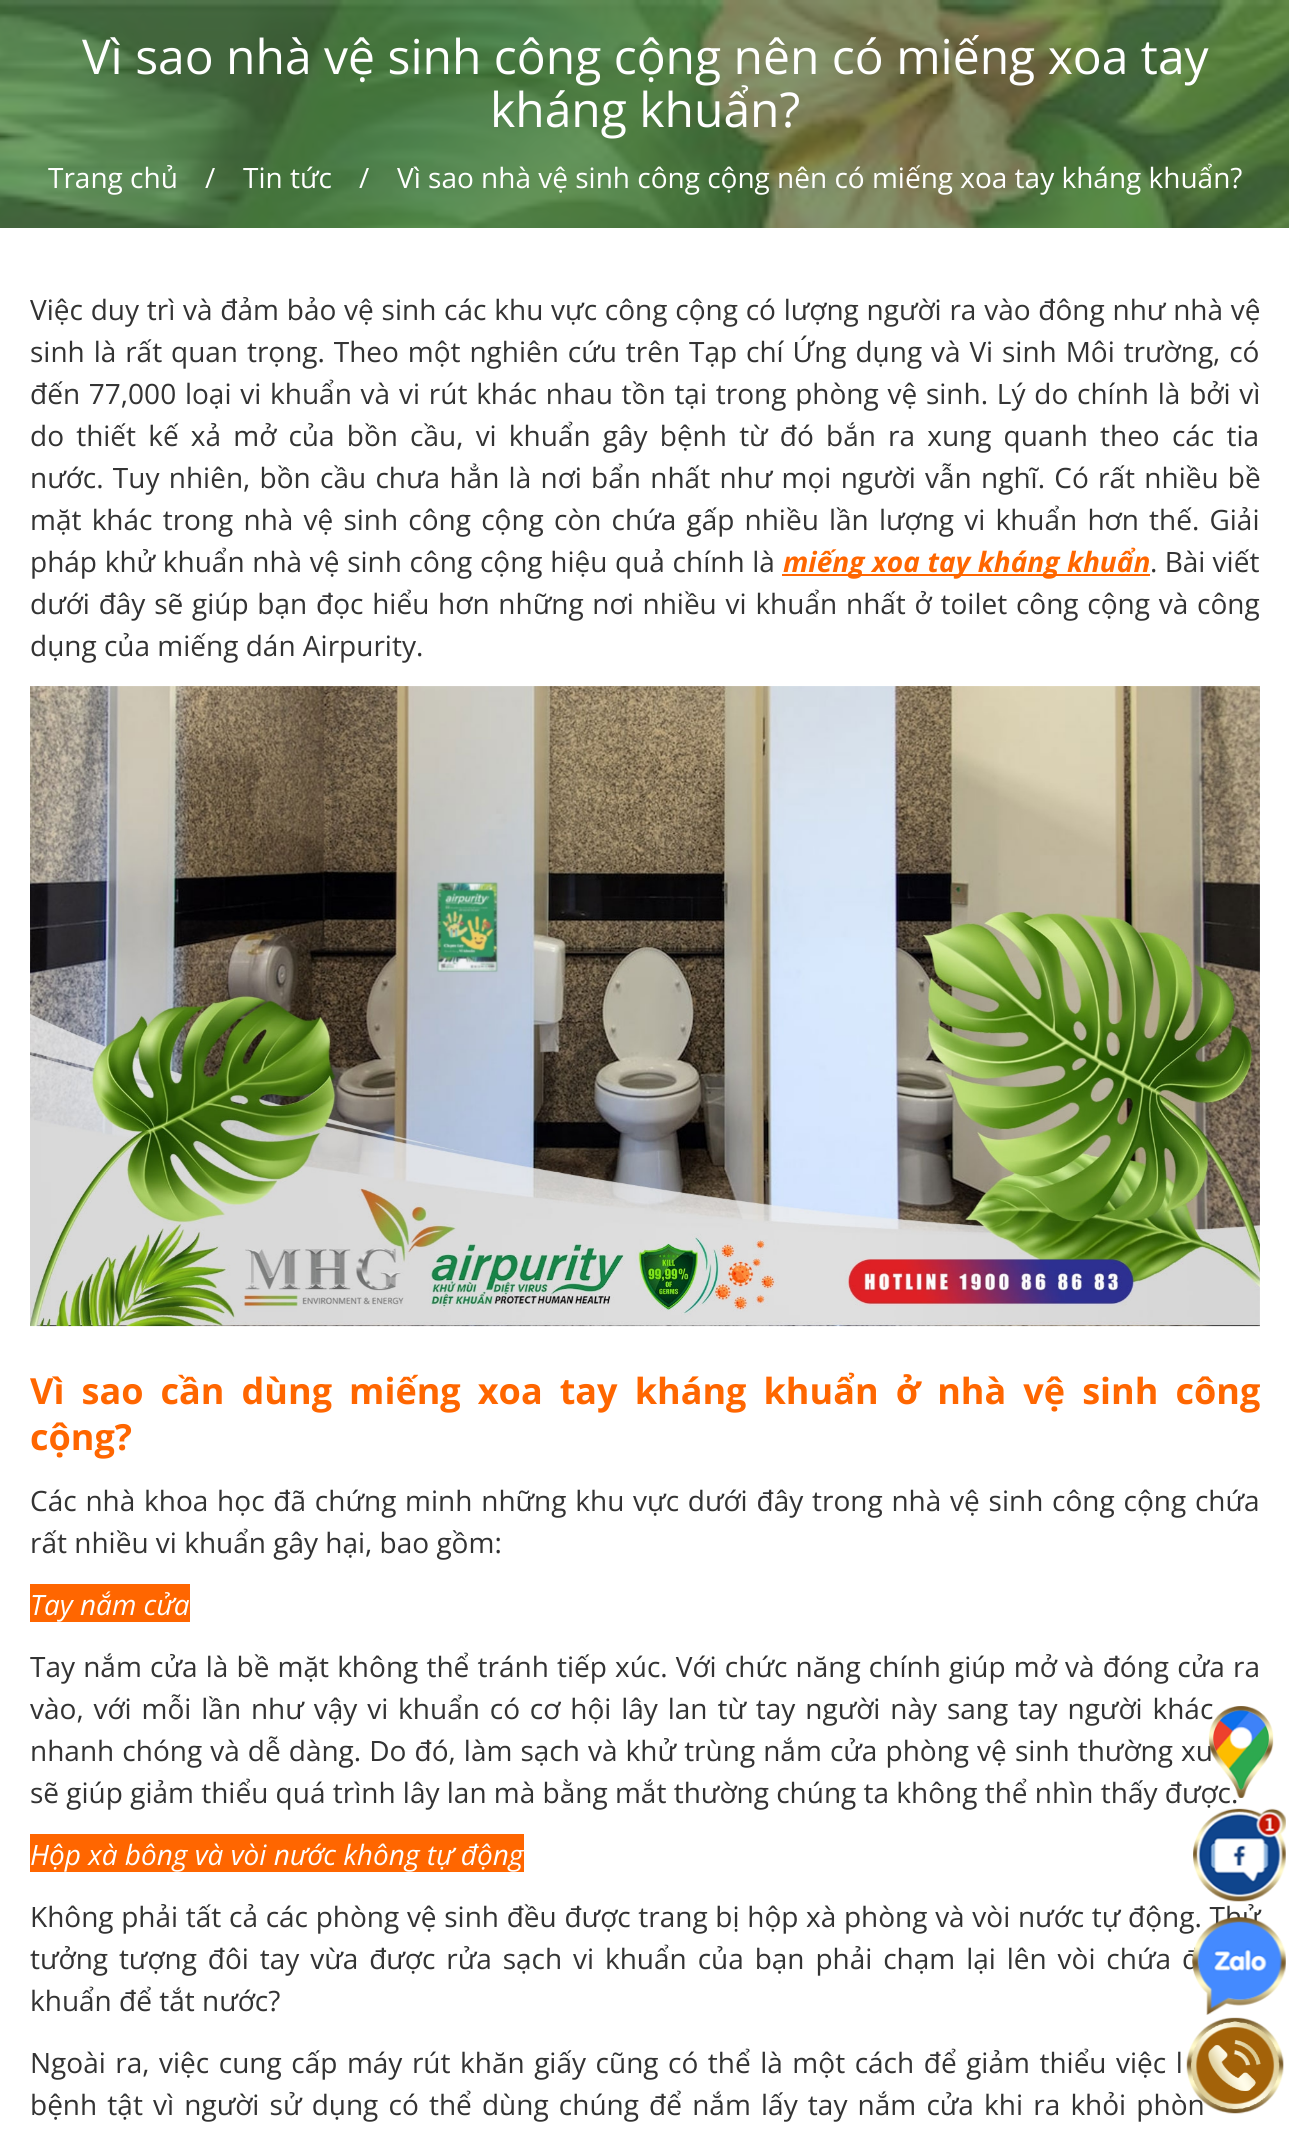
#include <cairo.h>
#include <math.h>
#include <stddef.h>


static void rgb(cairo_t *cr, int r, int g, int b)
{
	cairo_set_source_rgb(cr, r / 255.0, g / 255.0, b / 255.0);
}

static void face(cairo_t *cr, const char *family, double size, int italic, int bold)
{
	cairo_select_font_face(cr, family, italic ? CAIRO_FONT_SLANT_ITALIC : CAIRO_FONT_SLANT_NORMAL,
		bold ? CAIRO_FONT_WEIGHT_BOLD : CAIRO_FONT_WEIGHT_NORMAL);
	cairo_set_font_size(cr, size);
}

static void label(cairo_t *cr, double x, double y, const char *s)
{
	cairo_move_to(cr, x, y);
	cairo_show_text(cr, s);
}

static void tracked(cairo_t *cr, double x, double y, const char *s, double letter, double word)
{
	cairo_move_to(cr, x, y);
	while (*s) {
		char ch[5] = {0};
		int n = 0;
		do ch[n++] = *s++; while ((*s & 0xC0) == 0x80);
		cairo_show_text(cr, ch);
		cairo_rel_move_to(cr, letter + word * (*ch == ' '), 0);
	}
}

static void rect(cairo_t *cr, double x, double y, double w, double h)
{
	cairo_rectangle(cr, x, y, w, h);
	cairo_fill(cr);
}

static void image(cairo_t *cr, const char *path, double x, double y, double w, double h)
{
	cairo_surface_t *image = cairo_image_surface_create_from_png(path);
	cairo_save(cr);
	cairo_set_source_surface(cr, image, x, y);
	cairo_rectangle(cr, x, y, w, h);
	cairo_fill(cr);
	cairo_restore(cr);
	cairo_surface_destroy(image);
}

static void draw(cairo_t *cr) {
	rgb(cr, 255, 255, 255);
	cairo_paint(cr);
	image(cr, "image0.png", 0, 0, 1289, 228);
	face(cr, "Open Sans", 48, 0, 0);
	rgb(cr, 255, 255, 255);
	label(cr, 82, 74, "Vì sao nhà vệ sinh công cộng nên có miếng xoa tay");
	label(cr, 490, 127, "kháng khuẩn?");
	face(cr, "Open Sans", 28, 0, 0);
	label(cr, 48, 188, "Trang chủ");
	label(cr, 205, 188, "/");
	label(cr, 243, 188, "Tin tức");
	label(cr, 359, 188, "/");
	label(cr, 397, 188, "Vì sao nhà vệ sinh công cộng nên có miếng xoa tay kháng khuẩn?");
	rgb(cr, 51, 51, 51);
	tracked(cr, 30, 320, "Việc duy trì và đảm bảo vệ sinh các khu vực công cộng có lượng người ra vào đông như nhà vệ", 0, 0.5);
	tracked(cr, 30, 362, "sinh là rất quan trọng. Theo một nghiên cứu trên Tạp chí Ứng dụng và Vi sinh Môi trường, có", 0, 1.6);
	tracked(cr, 30, 404, "đến 77,000 loại vi khuẩn và vi rút khác nhau tồn tại trong phòng vệ sinh. Lý do chính là bởi vì", 0, 1.5);
	tracked(cr, 30, 446, "do thiết kế xả mở của bồn cầu, vi khuẩn gây bệnh từ đó bắn ra xung quanh theo các tia", 0, 4.9);
	tracked(cr, 30, 488, "nước. Tuy nhiên, bồn cầu chưa hẳn là nơi bẩn nhất như mọi người vẫn nghĩ. Có rất nhiều bề", 0, 2);
	tracked(cr, 30, 530, "mặt khác trong nhà vệ sinh công cộng còn chứa gấp nhiều lần lượng vi khuẩn hơn thế. Giải", 0, 2.9);
	tracked(cr, 30, 572, "pháp khử khuẩn nhà vệ sinh công cộng hiệu quả chính là", 0, 0.4);
	rgb(cr, 255, 102, 0);
	rect(cr, 782, 574, 368, 2);
	face(cr, "Open Sans", 28, 1, 1);
	tracked(cr, 783, 572, "miếng xoa tay kháng khuẩn", 0, 0.4);
	face(cr, "Open Sans", 28, 0, 0);
	rgb(cr, 51, 51, 51);
	label(cr, 1150, 572, ". Bài viết");
	tracked(cr, 30, 614, "dưới đây sẽ giúp bạn đọc hiểu hơn những nơi nhiều vi khuẩn nhất ở toilet công cộng và công", 0, 1.5);
	label(cr, 30, 656, "dụng của miếng dán Airpurity.");
	image(cr, "image1.png", 30, 686, 1230, 641);
	face(cr, "Open Sans", 36, 0, 1);
	rgb(cr, 255, 102, 0);
	tracked(cr, 30, 1404, "Vì sao cần dùng miếng xoa tay kháng khuẩn ở nhà vệ sinh công", 0, 7.75);
	label(cr, 30, 1450, "cộng?");
	face(cr, "Open Sans", 28, 0, 0);
	rgb(cr, 51, 51, 51);
	tracked(cr, 30, 1511, "Các nhà khoa học đã chứng minh những khu vực dưới đây trong nhà vệ sinh công cộng chứa", 0, 1.5);
	label(cr, 30, 1553, "rất nhiều vi khuẩn gây hại, bao gồm:");
	rgb(cr, 255, 102, 0);
	rect(cr, 30, 1584, 160, 38);
	face(cr, "Open Sans", 28, 1, 0);
	rgb(cr, 255, 255, 255);
	label(cr, 30, 1615, "Tay nắm cửa");
	face(cr, "Open Sans", 28, 0, 0);
	rgb(cr, 51, 51, 51);
	tracked(cr, 30, 1677, "Tay nắm cửa là bề mặt không thể tránh tiếp xúc. Với chức năng chính giúp mở và đóng cửa ra", 0, 0.9);
	tracked(cr, 30, 1719, "vào, với mỗi lần như vậy vi khuẩn có cơ hội lây lan từ tay người này sang tay người khác", 0, 2.6);
	tracked(cr, 30, 1761, "nhanh chóng và dễ dàng. Do đó, làm sạch và khử trùng nắm cửa phòng vệ sinh thường xu", 0, 0.8);
	label(cr, 30, 1803, "sẽ giúp giảm thiểu quá trình lây lan mà bằng mắt thường chúng ta không thể nhìn thấy được.");
	rgb(cr, 255, 102, 0);
	rect(cr, 30, 1834, 494, 38);
	face(cr, "Open Sans", 28, 1, 0);
	rgb(cr, 255, 255, 255);
	label(cr, 30, 1865, "Hộp xà bông và vòi nước không tự động");
	face(cr, "Open Sans", 28, 0, 0);
	rgb(cr, 51, 51, 51);
	tracked(cr, 30, 1927, "Không phải tất cả các phòng vệ sinh đều được trang bị hộp xà phòng và vòi nước tự động. Thử", 0, 0.4);
	tracked(cr, 30, 1969, "tưởng tượng đôi tay vừa được rửa sạch vi khuẩn của bạn phải chạm lại lên vòi chứa đ", 0, 3.6);
	label(cr, 30, 2011, "khuẩn để tắt nước?");
	tracked(cr, 30, 2073, "Ngoài ra, việc cung cấp máy rút khăn giấy cũng có thể là một cách để giảm thiểu việc l", 0, 2.25);
	tracked(cr, 30, 2115, "bệnh tật vì người sử dụng có thể dùng chúng để nắm lấy tay nắm cửa khi ra khỏi phòn", 0, 2.9);
	image(cr, "image2.png", 1208, 1706, 66, 92);
	image(cr, "image3.png", 1193, 1808, 93, 94);
	image(cr, "image4.png", 1192, 1917, 94, 98);
	image(cr, "image5.png", 1186, 2017, 98, 97);
}

int main(void) {
	cairo_surface_t *surface = cairo_image_surface_create(CAIRO_FORMAT_RGB24, 1289, 2146);
	cairo_t *cr = cairo_create(surface);
	cairo_font_options_t *options = cairo_font_options_create();
	cairo_font_options_set_hint_metrics(options, CAIRO_HINT_METRICS_OFF);
	cairo_font_options_set_hint_style(options, CAIRO_HINT_STYLE_NONE);
	cairo_set_font_options(cr, options);
	cairo_set_miter_limit(cr, 4);
	draw(cr);
	cairo_surface_write_to_png(surface, "render.png");
	cairo_font_options_destroy(options);
	cairo_destroy(cr);
	cairo_surface_destroy(surface);
	return 0;
}
